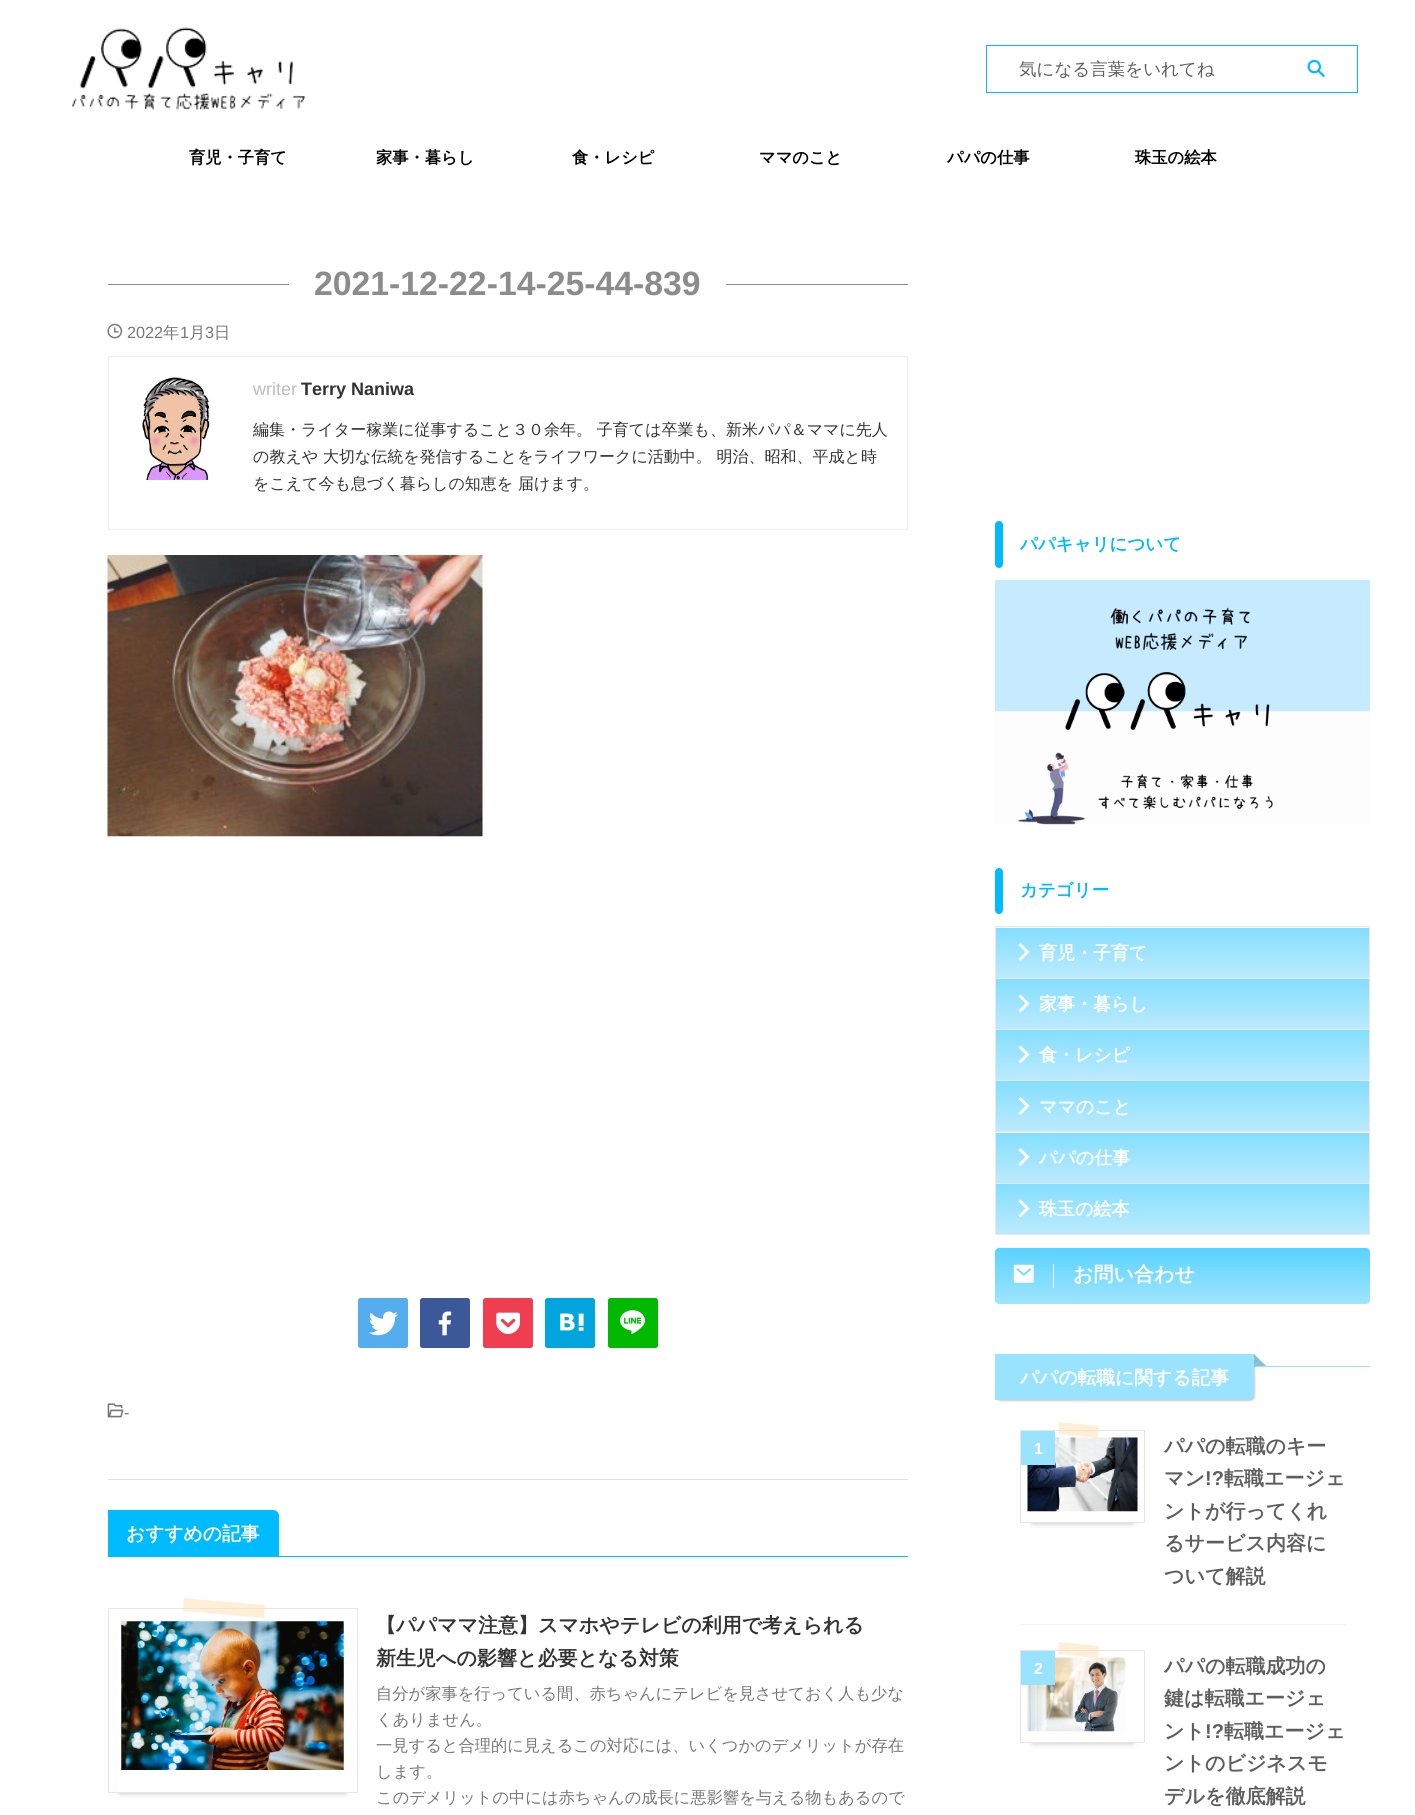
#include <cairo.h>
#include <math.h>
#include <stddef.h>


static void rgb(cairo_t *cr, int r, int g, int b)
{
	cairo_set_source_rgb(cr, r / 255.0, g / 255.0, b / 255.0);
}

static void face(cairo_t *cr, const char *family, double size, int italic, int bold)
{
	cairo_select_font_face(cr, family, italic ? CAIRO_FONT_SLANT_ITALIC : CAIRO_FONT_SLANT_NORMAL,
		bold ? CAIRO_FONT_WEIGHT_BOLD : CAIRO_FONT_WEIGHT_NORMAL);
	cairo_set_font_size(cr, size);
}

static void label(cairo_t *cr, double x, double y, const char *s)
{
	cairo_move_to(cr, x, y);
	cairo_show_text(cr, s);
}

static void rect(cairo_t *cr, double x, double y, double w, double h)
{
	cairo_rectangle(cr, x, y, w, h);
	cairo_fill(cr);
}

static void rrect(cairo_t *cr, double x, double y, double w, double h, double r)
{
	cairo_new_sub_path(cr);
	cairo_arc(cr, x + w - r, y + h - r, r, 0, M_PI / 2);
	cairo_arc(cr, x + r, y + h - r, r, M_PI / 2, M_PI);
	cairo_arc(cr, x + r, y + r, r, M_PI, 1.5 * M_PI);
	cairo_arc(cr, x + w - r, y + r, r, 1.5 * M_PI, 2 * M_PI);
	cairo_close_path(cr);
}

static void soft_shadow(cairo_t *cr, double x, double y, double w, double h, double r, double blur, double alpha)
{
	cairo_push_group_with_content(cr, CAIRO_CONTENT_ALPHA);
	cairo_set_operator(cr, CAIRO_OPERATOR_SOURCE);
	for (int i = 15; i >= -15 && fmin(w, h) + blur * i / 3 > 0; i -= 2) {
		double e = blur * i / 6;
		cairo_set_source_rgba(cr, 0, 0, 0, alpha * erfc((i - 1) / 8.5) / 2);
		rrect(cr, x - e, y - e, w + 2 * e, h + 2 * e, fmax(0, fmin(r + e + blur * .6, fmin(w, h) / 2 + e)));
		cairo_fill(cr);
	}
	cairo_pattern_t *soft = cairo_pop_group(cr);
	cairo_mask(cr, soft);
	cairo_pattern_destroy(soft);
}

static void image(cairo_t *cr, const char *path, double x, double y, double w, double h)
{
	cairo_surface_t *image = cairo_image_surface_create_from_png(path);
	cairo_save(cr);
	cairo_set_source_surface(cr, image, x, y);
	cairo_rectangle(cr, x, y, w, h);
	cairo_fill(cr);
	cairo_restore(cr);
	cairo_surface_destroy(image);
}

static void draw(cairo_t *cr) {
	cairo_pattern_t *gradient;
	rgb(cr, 255, 255, 255);
	cairo_paint(cr);
	image(cr, "image0.png", 72, 27, 234, 84);
	cairo_rectangle(cr, 986.5, 45.5, 371, 47);
	rgb(cr, 0, 187, 255);
	cairo_set_line_width(cr, 1);
	cairo_stroke(cr);
	face(cr, "WenQuanYi Zen Hei Medium", 17.5, 0, 0);
	rgb(cr, 94, 94, 94);
	label(cr, 1019, 75, "気になる言葉をいれてね");
	image(cr, "image1.png", 1307, 59, 18, 19);
	face(cr, "WenQuanYi Zen Hei", 16.25, 0, 1);
	rgb(cr, 0, 0, 0);
	label(cr, 189, 163, "育児・子育て");
	label(cr, 376, 163, "家事・暮らし");
	label(cr, 572, 163, "食・レシピ");
	label(cr, 759, 163, "ママのこと");
	label(cr, 947, 163, "パパの仕事");
	label(cr, 1135, 163, "珠玉の絵本");
	rgb(cr, 140, 140, 140);
	rect(cr, 108, 284, 181, 1);
	face(cr, "Liberation Sans", 33.75, 0, 1);
	label(cr, 314, 295, "2021-12-22-14-25-44-839");
	rect(cr, 726, 284, 182, 1);
	image(cr, "image2.png", 107, 323, 16, 16);
	face(cr, "Liberation Sans", 16.25, 0, 0);
	rgb(cr, 119, 119, 119);
	label(cr, 127, 338, "2022");
	face(cr, "WenQuanYi Zen Hei Medium", 16.25, 0, 0);
	label(cr, 163, 338, "年");
	face(cr, "Liberation Sans", 16.25, 0, 0);
	label(cr, 180, 338, "1");
	face(cr, "WenQuanYi Zen Hei Medium", 16.25, 0, 0);
	label(cr, 189, 338, "月");
	face(cr, "Liberation Sans", 16.25, 0, 0);
	label(cr, 205, 338, "3");
	face(cr, "WenQuanYi Zen Hei Medium", 16.25, 0, 0);
	label(cr, 214, 338, "日");
	cairo_rectangle(cr, 108.5, 356.5, 799, 173);
	rgb(cr, 238, 238, 238);
	cairo_stroke(cr);
	image(cr, "image3.png", 134, 377, 76, 103);
	face(cr, "Liberation Sans", 18, 0, 0);
	rgb(cr, 189, 189, 189);
	label(cr, 253, 395, "writer");
	face(cr, "Liberation Sans", 18, 0, 1);
	rgb(cr, 51, 51, 51);
	label(cr, 301, 395, "Terry Naniwa");
	face(cr, "WenQuanYi Zen Hei Medium", 16, 0, 0);
	label(cr, 253, 435, "編集・ライター稼業に従事すること３０余年。 子育ては卒業も、新米パパ＆ママに先人");
	label(cr, 253, 462, "の教えや 大切な伝統を発信することをライフワークに活動中。 明治、昭和、平成と時");
	label(cr, 253, 489, "をこえて今も息づく暮らしの知恵を 届けます。");
	image(cr, "image4.png", 107, 555, 376, 282);
	rgb(cr, 85, 172, 238);
	rrect(cr, 358, 1298, 50, 50, 2.5);
	cairo_fill(cr);
	image(cr, "image5.png", 369, 1311, 29, 25);
	rgb(cr, 59, 89, 152);
	rrect(cr, 420, 1298, 50, 50, 2.5);
	cairo_fill(cr);
	image(cr, "image6.png", 438, 1311, 14, 25);
	rgb(cr, 240, 62, 81);
	rrect(cr, 483, 1298, 50, 50, 2.5);
	cairo_fill(cr);
	image(cr, "image7.png", 496, 1312, 24, 22);
	rgb(cr, 0, 165, 222);
	rrect(cr, 545, 1298, 50, 50, 2.5);
	cairo_fill(cr);
	image(cr, "image8.png", 560, 1313, 24, 18);
	rgb(cr, 0, 185, 0);
	rrect(cr, 608, 1298, 50, 50, 2.5);
	cairo_fill(cr);
	image(cr, "image9.png", 620, 1310, 25, 24);
	image(cr, "image10.png", 107, 1403, 17, 15);
	face(cr, "Liberation Sans", 16.25, 0, 0);
	rgb(cr, 119, 119, 119);
	label(cr, 124, 1418, "-");
	rgb(cr, 224, 224, 224);
	rect(cr, 108, 1479, 800, 1);
	rgb(cr, 0, 187, 255);
	rect(cr, 108, 1556, 800, 1);
	cairo_new_path(cr);
	cairo_move_to(cr, 108, 1510);
	cairo_line_to(cr, 273, 1510);
	cairo_curve_to(cr, 276.5, 1510, 279, 1512.5, 279, 1516);
	cairo_line_to(cr, 279, 1556);
	cairo_line_to(cr, 108, 1556);
	cairo_close_path(cr);
	cairo_fill(cr);
	face(cr, "WenQuanYi Zen Hei", 18.75, 0, 1);
	rgb(cr, 255, 255, 255);
	label(cr, 126, 1540, "おすすめの記事");
	rgb(cr, 190, 190, 190);
	soft_shadow(cr, 120, 1633, 225, 160, 0, 3, 1);
	rgb(cr, 255, 255, 255);
	rect(cr, 115, 1628, 235, 164);
	cairo_rectangle(cr, 108.5, 1608.5, 249, 184);
	rgb(cr, 230, 230, 230);
	cairo_stroke(cr);
	cairo_set_source_rgba(cr, 1, 0.878, 0.698, 0.5);
	cairo_new_path(cr);
	cairo_move_to(cr, 184, 1598);
	cairo_line_to(cr, 265, 1605);
	cairo_line_to(cr, 264, 1618);
	cairo_line_to(cr, 183, 1611);
	cairo_close_path(cr);
	cairo_fill(cr);
	image(cr, "image11.png", 121, 1621, 223, 149);
	face(cr, "WenQuanYi Zen Hei", 20, 0, 1);
	rgb(cr, 51, 51, 51);
	label(cr, 376, 1632, "【パパママ注意】スマホやテレビの利用で考えられる");
	label(cr, 376, 1665, "新生児への影響と必要となる対策");
	face(cr, "WenQuanYi Zen Hei Medium", 16.25, 0, 0);
	rgb(cr, 119, 119, 119);
	label(cr, 376, 1699, "自分が家事を行っている間、赤ちゃんにテレビを見させておく人も少な");
	label(cr, 376, 1725, "くありません。");
	label(cr, 376, 1751, "一見すると合理的に見えるこの対応には、いくつかのデメリットが存在");
	label(cr, 376, 1777, "します。");
	label(cr, 376, 1803, "このデメリットの中には赤ちゃんの成長に悪影響を与える物もあるので");
	rgb(cr, 0, 187, 255);
	rrect(cr, 995, 521, 8, 47, 4);
	cairo_fill(cr);
	face(cr, "WenQuanYi Zen Hei", 17.5, 0, 1);
	label(cr, 1020, 550, "パパキャリについて");
	image(cr, "image12.png", 995, 580, 375, 245);
	rrect(cr, 995, 868, 8, 46, 4);
	cairo_fill(cr);
	label(cr, 1020, 896, "カテゴリー");
	rgb(cr, 232, 232, 232);
	rect(cr, 995, 926, 375, 1);
	rect(cr, 1369, 926, 1, 52);
	rect(cr, 995, 926, 1, 52);
	gradient = cairo_pattern_create_linear(1183, 928, 1183, 978);
	cairo_pattern_add_color_stop_rgba(gradient, 0, 0.518, 0.871, 1, 1);
	cairo_pattern_add_color_stop_rgba(gradient, 1, 0.737, 0.918, 1, 1);
	cairo_set_source(cr, gradient);
	cairo_pattern_destroy(gradient);
	rect(cr, 996, 928, 373, 50);
	rgb(cr, 255, 255, 255);
	cairo_new_path(cr);
	cairo_move_to(cr, 1025.5, 952);
	cairo_line_to(cr, 1018.5, 945);
	cairo_line_to(cr, 1020.5, 943);
	cairo_line_to(cr, 1029.5, 952);
	cairo_line_to(cr, 1020.5, 961);
	cairo_line_to(cr, 1018.5, 959);
	cairo_close_path(cr);
	cairo_fill(cr);
	face(cr, "WenQuanYi Zen Hei", 18, 0, 1);
	label(cr, 1039, 959, "育児・子育て");
	rgb(cr, 232, 232, 232);
	rect(cr, 995, 978, 375, 1);
	rect(cr, 1369, 978, 1, 51);
	rect(cr, 995, 978, 1, 51);
	gradient = cairo_pattern_create_linear(1183, 979, 1183, 1029);
	cairo_pattern_add_color_stop_rgba(gradient, 0, 0.518, 0.871, 1, 1);
	cairo_pattern_add_color_stop_rgba(gradient, 1, 0.737, 0.918, 1, 1);
	cairo_set_source(cr, gradient);
	cairo_pattern_destroy(gradient);
	rect(cr, 996, 979, 373, 50);
	rgb(cr, 255, 255, 255);
	cairo_new_path(cr);
	cairo_move_to(cr, 1025.5, 1003.5);
	cairo_line_to(cr, 1018.5, 996.5);
	cairo_line_to(cr, 1020.5, 994.5);
	cairo_line_to(cr, 1029.5, 1003.5);
	cairo_line_to(cr, 1020.5, 1012.5);
	cairo_line_to(cr, 1018.5, 1010.5);
	cairo_close_path(cr);
	cairo_fill(cr);
	label(cr, 1039, 1010, "家事・暮らし");
	rgb(cr, 232, 232, 232);
	rect(cr, 995, 1029, 375, 1);
	rect(cr, 1369, 1029, 1, 51);
	rect(cr, 995, 1029, 1, 51);
	gradient = cairo_pattern_create_linear(1183, 1030, 1183, 1080);
	cairo_pattern_add_color_stop_rgba(gradient, 0, 0.518, 0.871, 1, 1);
	cairo_pattern_add_color_stop_rgba(gradient, 1, 0.737, 0.918, 1, 1);
	cairo_set_source(cr, gradient);
	cairo_pattern_destroy(gradient);
	rect(cr, 996, 1030, 373, 50);
	rgb(cr, 255, 255, 255);
	cairo_new_path(cr);
	cairo_move_to(cr, 1025.5, 1054.5);
	cairo_line_to(cr, 1018.5, 1047.5);
	cairo_line_to(cr, 1020.5, 1045.5);
	cairo_line_to(cr, 1029.5, 1054.5);
	cairo_line_to(cr, 1020.5, 1063.5);
	cairo_line_to(cr, 1018.5, 1061.5);
	cairo_close_path(cr);
	cairo_fill(cr);
	label(cr, 1039, 1061, "食・レシピ");
	rgb(cr, 232, 232, 232);
	rect(cr, 995, 1080, 375, 1);
	rect(cr, 1369, 1080, 1, 51);
	rect(cr, 995, 1080, 1, 51);
	gradient = cairo_pattern_create_linear(1183, 1081, 1183, 1131);
	cairo_pattern_add_color_stop_rgba(gradient, 0, 0.518, 0.871, 1, 1);
	cairo_pattern_add_color_stop_rgba(gradient, 1, 0.737, 0.918, 1, 1);
	cairo_set_source(cr, gradient);
	cairo_pattern_destroy(gradient);
	rect(cr, 996, 1081, 373, 50);
	rgb(cr, 255, 255, 255);
	cairo_new_path(cr);
	cairo_move_to(cr, 1025.5, 1106);
	cairo_line_to(cr, 1018.5, 1099);
	cairo_line_to(cr, 1020.5, 1097);
	cairo_line_to(cr, 1029.5, 1106);
	cairo_line_to(cr, 1020.5, 1115);
	cairo_line_to(cr, 1018.5, 1113);
	cairo_close_path(cr);
	cairo_fill(cr);
	label(cr, 1039, 1113, "ママのこと");
	rgb(cr, 232, 232, 232);
	rect(cr, 995, 1131, 375, 1);
	rect(cr, 1369, 1131, 1, 52);
	rect(cr, 995, 1131, 1, 52);
	gradient = cairo_pattern_create_linear(1183, 1133, 1183, 1183);
	cairo_pattern_add_color_stop_rgba(gradient, 0, 0.518, 0.871, 1, 1);
	cairo_pattern_add_color_stop_rgba(gradient, 1, 0.737, 0.918, 1, 1);
	cairo_set_source(cr, gradient);
	cairo_pattern_destroy(gradient);
	rect(cr, 996, 1133, 373, 50);
	rgb(cr, 255, 255, 255);
	cairo_new_path(cr);
	cairo_move_to(cr, 1025.5, 1157);
	cairo_line_to(cr, 1018.5, 1150);
	cairo_line_to(cr, 1020.5, 1148);
	cairo_line_to(cr, 1029.5, 1157);
	cairo_line_to(cr, 1020.5, 1166);
	cairo_line_to(cr, 1018.5, 1164);
	cairo_close_path(cr);
	cairo_fill(cr);
	label(cr, 1039, 1164, "パパの仕事");
	cairo_rectangle(cr, 995.5, 1183.5, 374, 51);
	rgb(cr, 232, 232, 232);
	cairo_stroke(cr);
	gradient = cairo_pattern_create_linear(1183, 1184, 1183, 1234);
	cairo_pattern_add_color_stop_rgba(gradient, 0, 0.518, 0.871, 1, 1);
	cairo_pattern_add_color_stop_rgba(gradient, 1, 0.737, 0.918, 1, 1);
	cairo_set_source(cr, gradient);
	cairo_pattern_destroy(gradient);
	rect(cr, 996, 1184, 373, 50);
	rgb(cr, 255, 255, 255);
	cairo_new_path(cr);
	cairo_move_to(cr, 1025.5, 1208.5);
	cairo_line_to(cr, 1018.5, 1201.5);
	cairo_line_to(cr, 1020.5, 1199.5);
	cairo_line_to(cr, 1029.5, 1208.5);
	cairo_line_to(cr, 1020.5, 1217.5);
	cairo_line_to(cr, 1018.5, 1215.5);
	cairo_close_path(cr);
	cairo_fill(cr);
	label(cr, 1039, 1215, "珠玉の絵本");
	gradient = cairo_pattern_create_linear(1183, 1248, 1183, 1304);
	cairo_pattern_add_color_stop_rgba(gradient, 0, 0.349, 0.824, 1, 1);
	cairo_pattern_add_color_stop_rgba(gradient, 1, 0.627, 0.898, 1, 1);
	cairo_set_source(cr, gradient);
	cairo_pattern_destroy(gradient);
	rrect(cr, 995, 1248, 375, 56, 4);
	cairo_fill(cr);
	rgb(cr, 255, 255, 255);
	rect(cr, 1053, 1264, 1, 24);
	image(cr, "image13.png", 1013, 1264, 21, 19);
	face(cr, "WenQuanYi Zen Hei", 20, 0, 1);
	label(cr, 1073, 1281, "お問い合わせ");
	rgb(cr, 153, 227, 255);
	rect(cr, 1254, 1366, 116, 1);
	rgb(cr, 0, 0, 0);
	soft_shadow(cr, 996, 1355, 259, 46, 5, 1, 0.2);
	rgb(cr, 153, 227, 255);
	cairo_new_path(cr);
	cairo_move_to(cr, 995, 1354);
	cairo_line_to(cr, 1254, 1354);
	cairo_line_to(cr, 1254, 1395);
	cairo_curve_to(cr, 1254, 1398, 1252, 1400, 1249, 1400);
	cairo_line_to(cr, 995, 1400);
	cairo_close_path(cr);
	cairo_fill(cr);
	cairo_new_path(cr);
	cairo_move_to(cr, 1266, 1366);
	cairo_line_to(cr, 1254, 1366);
	cairo_line_to(cr, 1260, 1360);
	cairo_close_path(cr);
	cairo_fill(cr);
	cairo_new_path(cr);
	cairo_move_to(cr, 1254, 1366);
	cairo_line_to(cr, 1254, 1354);
	cairo_line_to(cr, 1260, 1360);
	cairo_close_path(cr);
	cairo_fill(cr);
	cairo_set_source_rgba(cr, 0.2, 0.2, 0.2, 0.2);
	cairo_new_path(cr);
	cairo_move_to(cr, 1266, 1366);
	cairo_line_to(cr, 1254, 1366);
	cairo_line_to(cr, 1260, 1360);
	cairo_close_path(cr);
	cairo_fill(cr);
	cairo_new_path(cr);
	cairo_move_to(cr, 1254, 1366);
	cairo_line_to(cr, 1254, 1354);
	cairo_line_to(cr, 1260, 1360);
	cairo_close_path(cr);
	cairo_fill(cr);
	face(cr, "WenQuanYi Zen Hei", 18.75, 0, 1);
	rgb(cr, 255, 255, 255);
	label(cr, 1020, 1384, "パパの転職に関する記事");
	rgb(cr, 243, 243, 243);
	rect(cr, 1020, 1624, 325, 1);
	rgb(cr, 190, 190, 190);
	soft_shadow(cr, 1033, 1455, 100, 68, 0, 3, 1);
	rgb(cr, 255, 255, 255);
	rect(cr, 1028, 1450, 110, 72);
	cairo_rectangle(cr, 1020.5, 1430.5, 124, 92);
	rgb(cr, 230, 230, 230);
	cairo_stroke(cr);
	image(cr, "image14.png", 1027, 1437, 111, 75);
	cairo_set_source_rgba(cr, 1, 0.878, 0.698, 0.5);
	cairo_new_path(cr);
	cairo_move_to(cr, 1059, 1422);
	cairo_line_to(cr, 1099, 1426);
	cairo_line_to(cr, 1098, 1438);
	cairo_line_to(cr, 1058, 1434);
	cairo_close_path(cr);
	cairo_fill(cr);
	rgb(cr, 153, 227, 255);
	rect(cr, 1021, 1431, 34, 34);
	face(cr, "Liberation Sans", 16, 0, 1);
	rgb(cr, 255, 255, 255);
	label(cr, 1034, 1454, "1");
	face(cr, "WenQuanYi Zen Hei", 20, 0, 1);
	rgb(cr, 94, 94, 94);
	label(cr, 1164, 1453, "パパの転職のキー");
	label(cr, 1164, 1485, "マン");
	face(cr, "Liberation Sans", 20, 0, 1);
	label(cr, 1205, 1485, "!?");
	face(cr, "WenQuanYi Zen Hei", 20, 0, 1);
	label(cr, 1224, 1485, "転職エージェ");
	label(cr, 1164, 1518, "ントが行ってくれ");
	label(cr, 1164, 1550, "るサービス内容に");
	label(cr, 1164, 1583, "ついて解説");
	rgb(cr, 190, 190, 190);
	soft_shadow(cr, 1033, 1675, 100, 68, 0, 3, 1);
	rgb(cr, 255, 255, 255);
	rect(cr, 1028, 1670, 110, 72);
	cairo_rectangle(cr, 1020.5, 1650.5, 124, 92);
	rgb(cr, 230, 230, 230);
	cairo_stroke(cr);
	image(cr, "image15.png", 1027, 1657, 99, 75);
	cairo_set_source_rgba(cr, 1, 0.878, 0.698, 0.5);
	cairo_new_path(cr);
	cairo_move_to(cr, 1059, 1642);
	cairo_line_to(cr, 1099, 1646);
	cairo_line_to(cr, 1098, 1658);
	cairo_line_to(cr, 1058, 1654);
	cairo_close_path(cr);
	cairo_fill(cr);
	rgb(cr, 153, 227, 255);
	rect(cr, 1021, 1651, 34, 34);
	face(cr, "Liberation Sans", 16, 0, 1);
	rgb(cr, 255, 255, 255);
	label(cr, 1034, 1674, "2");
	face(cr, "WenQuanYi Zen Hei", 20, 0, 1);
	rgb(cr, 94, 94, 94);
	label(cr, 1164, 1673, "パパの転職成功の");
	label(cr, 1164, 1705, "鍵は転職エージェ");
	label(cr, 1164, 1738, "ント");
	face(cr, "Liberation Sans", 20, 0, 1);
	label(cr, 1205, 1738, "!?");
	face(cr, "WenQuanYi Zen Hei", 20, 0, 1);
	label(cr, 1224, 1738, "転職エージェ");
	label(cr, 1164, 1770, "ントのビジネスモ");
	label(cr, 1164, 1803, "デルを徹底解説");
}

int main(void) {
	cairo_surface_t *surface = cairo_image_surface_create(CAIRO_FORMAT_RGB24, 1415, 1815);
	cairo_t *cr = cairo_create(surface);
	cairo_font_options_t *options = cairo_font_options_create();
	cairo_font_options_set_hint_metrics(options, CAIRO_HINT_METRICS_OFF);
	cairo_font_options_set_hint_style(options, CAIRO_HINT_STYLE_NONE);
	cairo_set_font_options(cr, options);
	cairo_set_miter_limit(cr, 4);
	draw(cr);
	cairo_surface_write_to_png(surface, "render.png");
	cairo_font_options_destroy(options);
	cairo_destroy(cr);
	cairo_surface_destroy(surface);
	return 0;
}
